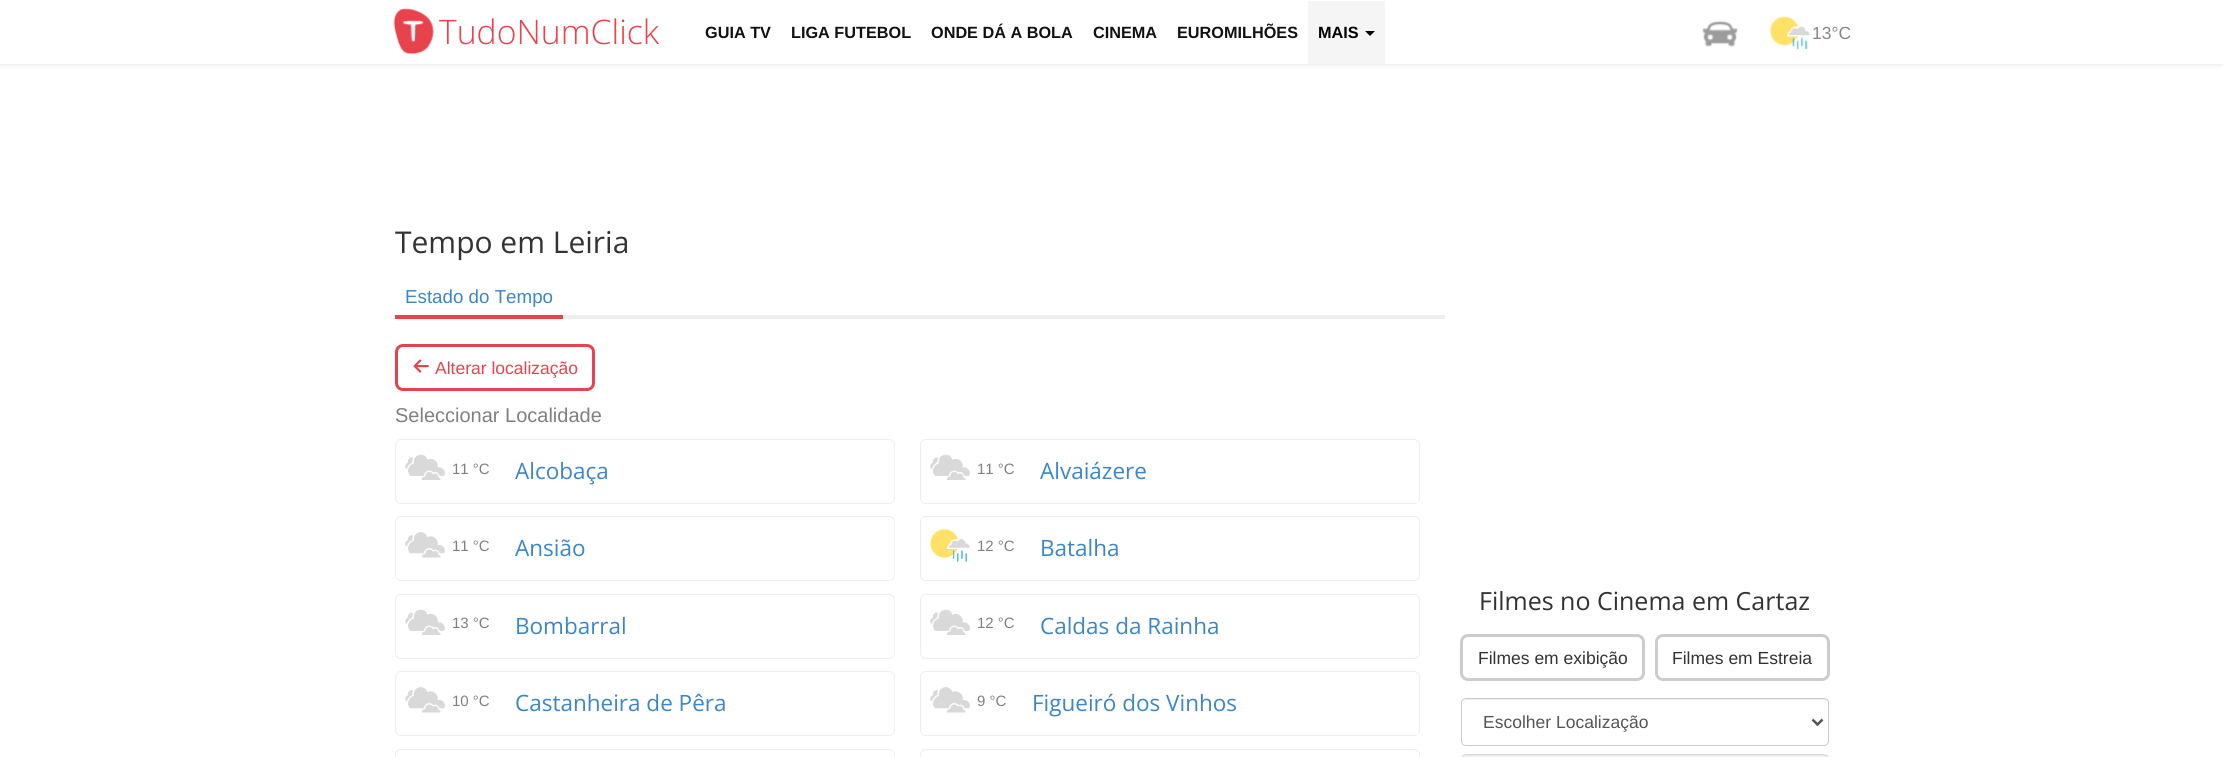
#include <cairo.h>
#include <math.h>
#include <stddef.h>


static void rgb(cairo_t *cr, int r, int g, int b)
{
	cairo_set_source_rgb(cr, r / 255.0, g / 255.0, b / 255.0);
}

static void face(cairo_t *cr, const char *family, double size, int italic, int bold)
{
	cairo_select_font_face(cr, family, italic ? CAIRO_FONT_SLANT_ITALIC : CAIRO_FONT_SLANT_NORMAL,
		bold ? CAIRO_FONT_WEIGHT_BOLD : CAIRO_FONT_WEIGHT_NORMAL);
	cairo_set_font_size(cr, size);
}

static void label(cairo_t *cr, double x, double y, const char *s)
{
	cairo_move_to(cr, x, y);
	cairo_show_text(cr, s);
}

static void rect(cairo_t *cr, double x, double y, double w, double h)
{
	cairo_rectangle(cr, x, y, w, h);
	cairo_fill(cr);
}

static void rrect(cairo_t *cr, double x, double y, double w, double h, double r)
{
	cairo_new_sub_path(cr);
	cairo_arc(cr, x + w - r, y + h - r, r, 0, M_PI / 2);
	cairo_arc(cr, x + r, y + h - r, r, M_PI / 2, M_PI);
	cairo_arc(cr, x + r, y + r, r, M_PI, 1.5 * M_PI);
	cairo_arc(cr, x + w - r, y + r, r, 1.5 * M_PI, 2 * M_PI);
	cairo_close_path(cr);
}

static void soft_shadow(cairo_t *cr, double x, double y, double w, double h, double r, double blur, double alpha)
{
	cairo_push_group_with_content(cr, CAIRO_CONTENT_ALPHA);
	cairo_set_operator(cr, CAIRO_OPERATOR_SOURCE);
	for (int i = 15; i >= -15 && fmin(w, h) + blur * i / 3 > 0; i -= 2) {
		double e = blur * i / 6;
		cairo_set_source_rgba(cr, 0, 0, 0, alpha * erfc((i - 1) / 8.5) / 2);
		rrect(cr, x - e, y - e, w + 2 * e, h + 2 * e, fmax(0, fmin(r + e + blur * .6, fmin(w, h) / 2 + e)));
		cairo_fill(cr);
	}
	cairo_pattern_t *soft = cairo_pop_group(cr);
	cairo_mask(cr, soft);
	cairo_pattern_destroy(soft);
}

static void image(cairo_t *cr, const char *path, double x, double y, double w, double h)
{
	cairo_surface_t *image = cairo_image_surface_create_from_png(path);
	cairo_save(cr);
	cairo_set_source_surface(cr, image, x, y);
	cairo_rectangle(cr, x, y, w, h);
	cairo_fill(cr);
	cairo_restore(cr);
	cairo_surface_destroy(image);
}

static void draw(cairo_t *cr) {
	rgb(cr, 255, 255, 255);
	cairo_paint(cr);
	rgb(cr, 0, 0, 0);
	soft_shadow(cr, -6, 0, 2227, 64, 0, 3, 0.13);
	rgb(cr, 255, 255, 255);
	rect(cr, 0, 0, 2225, 64);
	image(cr, "image0.png", 393, 8, 41, 47);
	face(cr, "Open Sans Light", 33.75, 0, 0);
	rgb(cr, 232, 66, 78);
	label(cr, 439, 44, "TudoNumClick");
	face(cr, "Liberation Sans", 16.25, 0, 1);
	rgb(cr, 17, 17, 17);
	label(cr, 705, 38, "GUIA TV");
	label(cr, 791, 38, "LIGA FUTEBOL");
	label(cr, 931, 38, "ONDE DÁ A BOLA");
	label(cr, 1093, 38, "CINEMA");
	label(cr, 1177, 38, "EUROMILHÕES");
	rgb(cr, 245, 245, 245);
	rect(cr, 1308, 1, 77, 63);
	rgb(cr, 0, 0, 0);
	label(cr, 1318, 38, "MAIS");
	cairo_new_path(cr);
	cairo_move_to(cr, 1365, 31);
	cairo_line_to(cr, 1375, 31);
	cairo_line_to(cr, 1370, 36);
	cairo_close_path(cr);
	cairo_fill(cr);
	image(cr, "image1.png", 1702, 20, 36, 27);
	image(cr, "image2.png", 1770, 16, 40, 34);
	face(cr, "Liberation Sans", 17.5, 0, 0);
	rgb(cr, 135, 135, 135);
	label(cr, 1812, 39, "13°C");
	face(cr, "Open Sans", 30, 0, 0);
	rgb(cr, 51, 51, 51);
	label(cr, 395, 253, "Tempo em Leiria");
	rgb(cr, 238, 238, 238);
	rect(cr, 563, 315, 882, 4);
	rgb(cr, 232, 66, 78);
	rect(cr, 395, 315, 168, 4);
	face(cr, "Liberation Sans", 18.75, 0, 0);
	rgb(cr, 61, 134, 198);
	label(cr, 405, 303, "Estado do Tempo");
	rrect(cr, 396.5, 345.5, 197, 44, 6.5);
	rgb(cr, 232, 66, 78);
	cairo_set_line_width(cr, 3);
	cairo_stroke(cr);
	image(cr, "image3.png", 413, 359, 16, 14);
	face(cr, "Liberation Sans", 17.5, 0, 0);
	label(cr, 435, 374, "Alterar localização");
	face(cr, "Liberation Sans", 20, 0, 0);
	rgb(cr, 128, 128, 128);
	label(cr, 395, 422, "Seleccionar Localidade");
	rrect(cr, 395.5, 439.5, 499, 64, 5.5);
	rgb(cr, 238, 238, 238);
	cairo_set_line_width(cr, 1);
	cairo_stroke(cr);
	image(cr, "image4.png", 405, 454, 40, 26);
	face(cr, "Liberation Sans", 15, 0, 0);
	rgb(cr, 128, 128, 128);
	label(cr, 452, 474, "11 °C");
	face(cr, "Open Sans", 22.5, 0, 0);
	rgb(cr, 61, 134, 198);
	label(cr, 515, 479, "Alcobaça");
	rrect(cr, 920.5, 439.5, 499, 64, 5.5);
	rgb(cr, 238, 238, 238);
	cairo_stroke(cr);
	image(cr, "image4.png", 930, 454, 40, 26);
	face(cr, "Liberation Sans", 15, 0, 0);
	rgb(cr, 128, 128, 128);
	label(cr, 977, 474, "11 °C");
	face(cr, "Open Sans", 22.5, 0, 0);
	rgb(cr, 61, 134, 198);
	label(cr, 1040, 479, "Alvaiázere");
	rrect(cr, 395.5, 516.5, 499, 64, 5.5);
	rgb(cr, 238, 238, 238);
	cairo_stroke(cr);
	image(cr, "image5.png", 405, 532, 40, 26);
	face(cr, "Liberation Sans", 15, 0, 0);
	rgb(cr, 128, 128, 128);
	label(cr, 452, 551, "11 °C");
	face(cr, "Open Sans", 22.5, 0, 0);
	rgb(cr, 61, 134, 198);
	label(cr, 515, 556, "Ansião");
	rrect(cr, 920.5, 516.5, 499, 64, 5.5);
	rgb(cr, 238, 238, 238);
	cairo_stroke(cr);
	image(cr, "image6.png", 930, 529, 40, 33);
	face(cr, "Liberation Sans", 15, 0, 0);
	rgb(cr, 128, 128, 128);
	label(cr, 977, 551, "12 °C");
	face(cr, "Open Sans", 22.5, 0, 0);
	rgb(cr, 61, 134, 198);
	label(cr, 1040, 556, "Batalha");
	rrect(cr, 395.5, 594.5, 499, 64, 5.5);
	rgb(cr, 238, 238, 238);
	cairo_stroke(cr);
	image(cr, "image4.png", 405, 609, 40, 26);
	face(cr, "Liberation Sans", 15, 0, 0);
	rgb(cr, 128, 128, 128);
	label(cr, 452, 628, "13 °C");
	face(cr, "Open Sans", 22.5, 0, 0);
	rgb(cr, 61, 134, 198);
	label(cr, 515, 634, "Bombarral");
	rrect(cr, 920.5, 594.5, 499, 64, 5.5);
	rgb(cr, 238, 238, 238);
	cairo_stroke(cr);
	image(cr, "image4.png", 930, 609, 40, 26);
	face(cr, "Liberation Sans", 15, 0, 0);
	rgb(cr, 128, 128, 128);
	label(cr, 977, 628, "12 °C");
	face(cr, "Open Sans", 22.5, 0, 0);
	rgb(cr, 61, 134, 198);
	label(cr, 1040, 634, "Caldas da Rainha");
	rrect(cr, 395.5, 671.5, 499, 64, 5.5);
	rgb(cr, 238, 238, 238);
	cairo_stroke(cr);
	image(cr, "image5.png", 405, 687, 40, 26);
	face(cr, "Liberation Sans", 15, 0, 0);
	rgb(cr, 128, 128, 128);
	label(cr, 452, 706, "10 °C");
	face(cr, "Open Sans", 22.5, 0, 0);
	rgb(cr, 61, 134, 198);
	label(cr, 515, 711, "Castanheira de Pêra");
	rrect(cr, 920.5, 671.5, 499, 64, 5.5);
	rgb(cr, 238, 238, 238);
	cairo_stroke(cr);
	image(cr, "image5.png", 930, 687, 40, 26);
	face(cr, "Liberation Sans", 15, 0, 0);
	rgb(cr, 128, 128, 128);
	label(cr, 977, 706, "9 °C");
	face(cr, "Open Sans", 22.5, 0, 0);
	rgb(cr, 61, 134, 198);
	label(cr, 1032, 711, "Figueiró dos Vinhos");
	rrect(cr, 395.5, 749.5, 499, 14, 5.5);
	rgb(cr, 238, 238, 238);
	cairo_stroke(cr);
	rrect(cr, 920.5, 749.5, 499, 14, 5.5);
	cairo_stroke(cr);
	face(cr, "Open Sans", 25, 0, 0);
	rgb(cr, 51, 51, 51);
	label(cr, 1479, 610, "Filmes no Cinema em Cartaz");
	rrect(cr, 1461.5, 635.5, 182, 44, 6.5);
	rgb(cr, 204, 204, 204);
	cairo_set_line_width(cr, 3);
	cairo_stroke(cr);
	face(cr, "Liberation Sans", 17.5, 0, 0);
	rgb(cr, 51, 51, 51);
	label(cr, 1478, 664, "Filmes em exibição");
	rrect(cr, 1656.5, 635.5, 172, 44, 6.5);
	rgb(cr, 204, 204, 204);
	cairo_stroke(cr);
	rgb(cr, 51, 51, 51);
	label(cr, 1672, 664, "Filmes em Estreia");
	rgb(cr, 236, 236, 236);
	cairo_new_path(cr);
	cairo_move_to(cr, 1466, 700);
	cairo_line_to(cr, 1824, 700);
	cairo_curve_to(cr, 1826, 700, 1828, 702, 1828, 704);
	cairo_line_to(cr, 1828, 703);
	cairo_curve_to(cr, 1828, 701, 1826, 699, 1824, 699);
	cairo_line_to(cr, 1467, 699);
	cairo_curve_to(cr, 1466, 699, 1464, 700, 1464, 701);
	cairo_close_path(cr);
	cairo_fill(cr);
	rrect(cr, 1461.5, 698.5, 367, 47, 4.5);
	rgb(cr, 204, 204, 204);
	cairo_set_line_width(cr, 1);
	cairo_stroke(cr);
	cairo_new_path(cr);
	cairo_move_to(cr, 1812.5, 719.5);
	cairo_line_to(cr, 1817.5, 724.5);
	cairo_line_to(cr, 1822.5, 719.5);
	rgb(cr, 85, 85, 85);
	cairo_set_line_width(cr, 2.5);
	cairo_stroke(cr);
	label(cr, 1483, 728, "Escolher Localização");
	rgb(cr, 243, 243, 243);
	rrect(cr, 1461, 754, 368, 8, 5);
	cairo_fill(cr);
	rgb(cr, 231, 231, 231);
	cairo_new_path(cr);
	cairo_move_to(cr, 1466, 756);
	cairo_line_to(cr, 1824, 756);
	cairo_curve_to(cr, 1826, 756, 1828, 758, 1828, 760);
	cairo_line_to(cr, 1828, 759);
	cairo_curve_to(cr, 1828, 757, 1826, 755, 1824, 755);
	cairo_line_to(cr, 1467, 755);
	cairo_curve_to(cr, 1466, 755, 1464, 756, 1464, 757);
	cairo_close_path(cr);
	cairo_fill(cr);
	rrect(cr, 1461.5, 754.5, 367, 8, 4.5);
	rgb(cr, 219, 219, 219);
	cairo_set_line_width(cr, 1);
	cairo_stroke(cr);
}

int main(void) {
	cairo_surface_t *surface = cairo_image_surface_create(CAIRO_FORMAT_RGB24, 2227, 757);
	cairo_t *cr = cairo_create(surface);
	cairo_font_options_t *options = cairo_font_options_create();
	cairo_font_options_set_hint_metrics(options, CAIRO_HINT_METRICS_OFF);
	cairo_font_options_set_hint_style(options, CAIRO_HINT_STYLE_NONE);
	cairo_set_font_options(cr, options);
	cairo_set_miter_limit(cr, 4);
	draw(cr);
	cairo_surface_write_to_png(surface, "render.png");
	cairo_font_options_destroy(options);
	cairo_destroy(cr);
	cairo_surface_destroy(surface);
	return 0;
}
